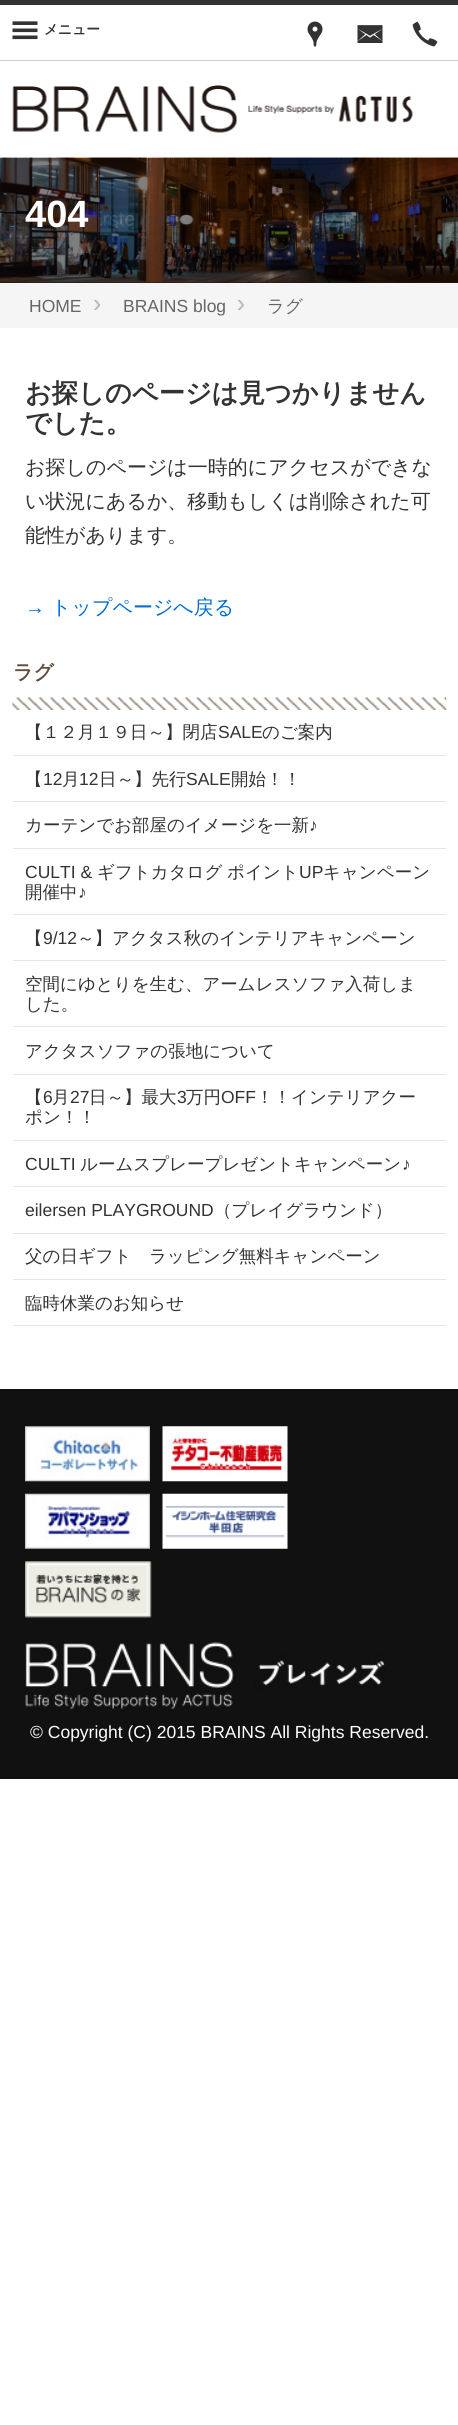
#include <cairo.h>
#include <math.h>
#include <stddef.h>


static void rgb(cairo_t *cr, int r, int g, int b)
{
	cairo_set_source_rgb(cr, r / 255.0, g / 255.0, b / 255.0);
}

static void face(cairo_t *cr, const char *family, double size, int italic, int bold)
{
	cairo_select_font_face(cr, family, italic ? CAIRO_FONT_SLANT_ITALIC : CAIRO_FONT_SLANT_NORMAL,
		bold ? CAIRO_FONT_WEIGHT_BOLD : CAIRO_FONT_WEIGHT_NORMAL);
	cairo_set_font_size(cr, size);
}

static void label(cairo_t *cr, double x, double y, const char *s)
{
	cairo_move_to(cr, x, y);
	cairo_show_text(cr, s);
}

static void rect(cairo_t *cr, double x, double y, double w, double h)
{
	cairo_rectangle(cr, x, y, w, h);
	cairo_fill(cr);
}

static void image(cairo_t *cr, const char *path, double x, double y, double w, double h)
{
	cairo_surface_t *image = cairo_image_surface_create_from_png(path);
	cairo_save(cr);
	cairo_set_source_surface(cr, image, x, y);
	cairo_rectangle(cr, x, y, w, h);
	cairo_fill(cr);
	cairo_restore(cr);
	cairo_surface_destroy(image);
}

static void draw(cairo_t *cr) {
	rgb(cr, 255, 255, 255);
	cairo_paint(cr);
	rgb(cr, 51, 51, 51);
	rect(cr, 0, 0, 458, 5);
	rgb(cr, 204, 204, 204);
	rect(cr, 0, 60, 458, 1);
	image(cr, "image0.png", 12, 21, 26, 19);
	face(cr, "WenQuanYi Zen Hei", 13.75, 0, 1);
	rgb(cr, 51, 51, 51);
	label(cr, 44, 34, "メニュー");
	image(cr, "image1.png", 307, 21, 16, 26);
	image(cr, "image2.png", 357, 25, 26, 18);
	image(cr, "image3.png", 412, 21, 26, 26);
	image(cr, "image4.png", 12, 85, 401, 48);
	rgb(cr, 26, 26, 26);
	rect(cr, 0, 282, 458, 1);
	image(cr, "image5.png", 0, 157, 458, 126);
	face(cr, "Liberation Sans", 38, 0, 1);
	rgb(cr, 255, 255, 255);
	label(cr, 25, 227, "404");
	rgb(cr, 245, 245, 245);
	rect(cr, 0, 283, 458, 45);
	face(cr, "Liberation Sans", 17.5, 0, 0);
	rgb(cr, 102, 102, 102);
	label(cr, 29, 312, "HOME");
	image(cr, "image6.png", 93, 300, 7, 10);
	label(cr, 123, 312, "BRAINS blog");
	image(cr, "image7.png", 237, 300, 7, 10);
	face(cr, "WenQuanYi Zen Hei Medium", 17.5, 0, 0);
	label(cr, 267, 312, "ラグ");
	face(cr, "WenQuanYi Zen Hei", 26.25, 0, 1);
	rgb(cr, 51, 51, 51);
	label(cr, 25, 402, "お探しのページは見つかりません");
	label(cr, 25, 432, "でした。");
	face(cr, "WenQuanYi Zen Hei Medium", 20, 0, 0);
	label(cr, 25, 474, "お探しのページは一時的にアクセスができな");
	label(cr, 25, 508, "い状況にあるか、移動もしくは削除された可");
	label(cr, 25, 542, "能性があります。");
	face(cr, "Liberation Sans", 20, 0, 0);
	rgb(cr, 0, 109, 217);
	label(cr, 25, 614, "→");
	face(cr, "WenQuanYi Zen Hei Medium", 20, 0, 0);
	label(cr, 51, 614, "トップページへ戻る");
	face(cr, "WenQuanYi Zen Hei", 20, 0, 1);
	rgb(cr, 98, 78, 65);
	label(cr, 13, 679, "ラグ");
	image(cr, "image8.png", 12, 697, 435, 13);
	rgb(cr, 229, 229, 229);
	rect(cr, 13, 755, 433, 1);
	face(cr, "WenQuanYi Zen Hei Medium", 17.5, 0, 0);
	rgb(cr, 51, 51, 51);
	label(cr, 25, 738, "【１２月１９日～】閉店");
	face(cr, "Liberation Sans", 17.5, 0, 0);
	label(cr, 218, 738, "SALE");
	face(cr, "WenQuanYi Zen Hei Medium", 17.5, 0, 0);
	label(cr, 262, 738, "のご案内");
	rgb(cr, 229, 229, 229);
	rect(cr, 13, 801, 433, 1);
	rgb(cr, 51, 51, 51);
	label(cr, 25, 785, "【");
	face(cr, "Liberation Sans", 17.5, 0, 0);
	label(cr, 43, 785, "12");
	face(cr, "WenQuanYi Zen Hei Medium", 17.5, 0, 0);
	label(cr, 62, 785, "月");
	face(cr, "Liberation Sans", 17.5, 0, 0);
	label(cr, 79, 785, "12");
	face(cr, "WenQuanYi Zen Hei Medium", 17.5, 0, 0);
	label(cr, 99, 785, "日～】先行");
	face(cr, "Liberation Sans", 17.5, 0, 0);
	label(cr, 186, 785, "SALE");
	face(cr, "WenQuanYi Zen Hei Medium", 17.5, 0, 0);
	label(cr, 231, 785, "開始！！");
	rgb(cr, 229, 229, 229);
	rect(cr, 13, 848, 433, 1);
	rgb(cr, 51, 51, 51);
	label(cr, 25, 831, "カーテンでお部屋のイメージを一新");
	face(cr, "Liberation Sans", 17.5, 0, 0);
	label(cr, 309, 831, "♪");
	rgb(cr, 229, 229, 229);
	rect(cr, 13, 914, 433, 1);
	rgb(cr, 51, 51, 51);
	label(cr, 25, 878, "CULTI &");
	face(cr, "WenQuanYi Zen Hei Medium", 17.5, 0, 0);
	label(cr, 97, 878, "ギフトカタログ");
	label(cr, 227, 878, "ポイント");
	face(cr, "Liberation Sans", 17.5, 0, 0);
	label(cr, 299, 878, "UP");
	face(cr, "WenQuanYi Zen Hei Medium", 17.5, 0, 0);
	label(cr, 323, 878, "キャンペーン");
	label(cr, 25, 898, "開催中");
	face(cr, "Liberation Sans", 17.5, 0, 0);
	label(cr, 78, 898, "♪");
	rgb(cr, 229, 229, 229);
	rect(cr, 13, 960, 433, 1);
	face(cr, "WenQuanYi Zen Hei Medium", 17.5, 0, 0);
	rgb(cr, 51, 51, 51);
	label(cr, 25, 944, "【");
	face(cr, "Liberation Sans", 17.5, 0, 0);
	label(cr, 43, 944, "9/12");
	face(cr, "WenQuanYi Zen Hei Medium", 17.5, 0, 0);
	label(cr, 77, 944, "～】アクタス秋のインテリアキャンペーン");
	rgb(cr, 229, 229, 229);
	rect(cr, 13, 1026, 433, 1);
	rgb(cr, 51, 51, 51);
	label(cr, 25, 990, "空間にゆとりを生む、アームレスソファ入荷しま");
	label(cr, 25, 1010, "した。");
	rgb(cr, 229, 229, 229);
	rect(cr, 13, 1074, 433, 1);
	rgb(cr, 51, 51, 51);
	label(cr, 25, 1057, "アクタスソファの張地について");
	rgb(cr, 229, 229, 229);
	rect(cr, 13, 1140, 433, 1);
	rgb(cr, 51, 51, 51);
	label(cr, 25, 1103, "【");
	face(cr, "Liberation Sans", 17.5, 0, 0);
	label(cr, 43, 1103, "6");
	face(cr, "WenQuanYi Zen Hei Medium", 17.5, 0, 0);
	label(cr, 52, 1103, "月");
	face(cr, "Liberation Sans", 17.5, 0, 0);
	label(cr, 70, 1103, "27");
	face(cr, "WenQuanYi Zen Hei Medium", 17.5, 0, 0);
	label(cr, 89, 1103, "日～】最大");
	face(cr, "Liberation Sans", 17.5, 0, 0);
	label(cr, 177, 1103, "3");
	face(cr, "WenQuanYi Zen Hei Medium", 17.5, 0, 0);
	label(cr, 186, 1103, "万円");
	face(cr, "Liberation Sans", 17.5, 0, 0);
	label(cr, 221, 1103, "OFF");
	face(cr, "WenQuanYi Zen Hei Medium", 17.5, 0, 0);
	label(cr, 256, 1103, "！！インテリアクー");
	label(cr, 25, 1123, "ポン！！");
	rgb(cr, 229, 229, 229);
	rect(cr, 13, 1186, 433, 1);
	face(cr, "Liberation Sans", 17.5, 0, 0);
	rgb(cr, 51, 51, 51);
	label(cr, 25, 1170, "CULTI");
	face(cr, "WenQuanYi Zen Hei Medium", 17.5, 0, 0);
	label(cr, 80, 1170, "ルームスプレープレゼントキャンペーン");
	face(cr, "Liberation Sans", 17.5, 0, 0);
	label(cr, 402, 1170, "♪");
	rgb(cr, 229, 229, 229);
	rect(cr, 13, 1233, 433, 1);
	rgb(cr, 51, 51, 51);
	label(cr, 25, 1216, "eilersen PLAYGROUND");
	face(cr, "WenQuanYi Zen Hei Medium", 17.5, 0, 0);
	label(cr, 214, 1216, "（プレイグラウンド）");
	rgb(cr, 229, 229, 229);
	rect(cr, 13, 1279, 433, 1);
	rgb(cr, 51, 51, 51);
	label(cr, 25, 1262, "父の日ギフト　ラッピング無料キャンペーン");
	rgb(cr, 229, 229, 229);
	rect(cr, 13, 1325, 433, 1);
	rgb(cr, 51, 51, 51);
	label(cr, 25, 1309, "臨時休業のお知らせ");
	rgb(cr, 17, 17, 17);
	rect(cr, 0, 1389, 458, 390);
	image(cr, "image9.png", 25, 1426, 125, 56);
	image(cr, "image10.png", 162, 1426, 126, 56);
	image(cr, "image11.png", 25, 1493, 125, 56);
	image(cr, "image12.png", 162, 1493, 126, 56);
	image(cr, "image13.png", 25, 1561, 127, 57);
	image(cr, "image14.png", 25, 1642, 360, 67);
	face(cr, "Liberation Sans", 17.5, 0, 0);
	rgb(cr, 255, 255, 255);
	label(cr, 30, 1738, "© Copyright (C) 2015 BRAINS All Rights Reserved.");
}

int main(void) {
	cairo_surface_t *surface = cairo_image_surface_create(CAIRO_FORMAT_RGB24, 458, 2425);
	cairo_t *cr = cairo_create(surface);
	cairo_font_options_t *options = cairo_font_options_create();
	cairo_font_options_set_hint_metrics(options, CAIRO_HINT_METRICS_OFF);
	cairo_font_options_set_hint_style(options, CAIRO_HINT_STYLE_NONE);
	cairo_set_font_options(cr, options);
	cairo_set_miter_limit(cr, 4);
	draw(cr);
	cairo_surface_write_to_png(surface, "render.png");
	cairo_font_options_destroy(options);
	cairo_destroy(cr);
	cairo_surface_destroy(surface);
	return 0;
}
